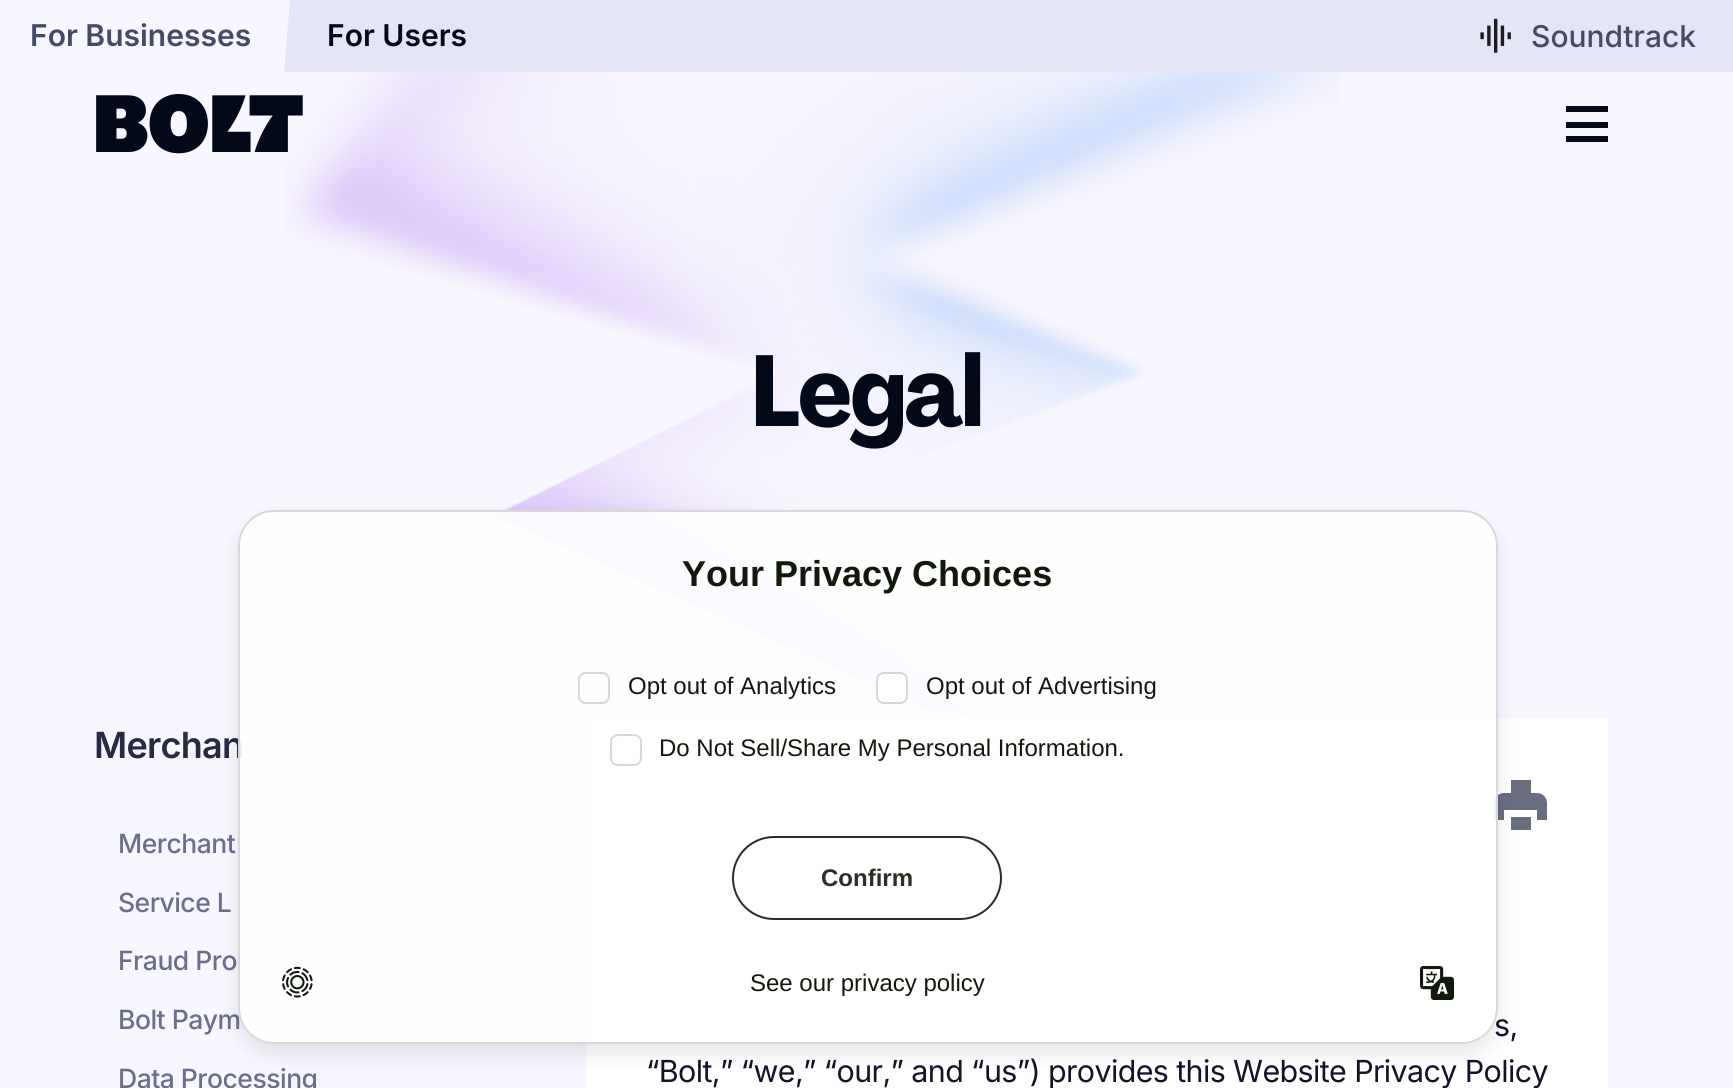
#include <cairo.h>
#include <math.h>
#include <stddef.h>


static void rgb(cairo_t *cr, int r, int g, int b)
{
	cairo_set_source_rgb(cr, r / 255.0, g / 255.0, b / 255.0);
}

static void face(cairo_t *cr, const char *family, double size, int italic, int bold)
{
	cairo_select_font_face(cr, family, italic ? CAIRO_FONT_SLANT_ITALIC : CAIRO_FONT_SLANT_NORMAL,
		bold ? CAIRO_FONT_WEIGHT_BOLD : CAIRO_FONT_WEIGHT_NORMAL);
	cairo_set_font_size(cr, size);
}

static void label(cairo_t *cr, double x, double y, const char *s)
{
	cairo_move_to(cr, x, y);
	cairo_show_text(cr, s);
}

static void tracked(cairo_t *cr, double x, double y, const char *s, double letter, double word)
{
	cairo_move_to(cr, x, y);
	while (*s) {
		char ch[5] = {0};
		int n = 0;
		do ch[n++] = *s++; while ((*s & 0xC0) == 0x80);
		cairo_show_text(cr, ch);
		cairo_rel_move_to(cr, letter + word * (*ch == ' '), 0);
	}
}

static void rect(cairo_t *cr, double x, double y, double w, double h)
{
	cairo_rectangle(cr, x, y, w, h);
	cairo_fill(cr);
}

static void rrect(cairo_t *cr, double x, double y, double w, double h, double r)
{
	cairo_new_sub_path(cr);
	cairo_arc(cr, x + w - r, y + h - r, r, 0, M_PI / 2);
	cairo_arc(cr, x + r, y + h - r, r, M_PI / 2, M_PI);
	cairo_arc(cr, x + r, y + r, r, M_PI, 1.5 * M_PI);
	cairo_arc(cr, x + w - r, y + r, r, 1.5 * M_PI, 2 * M_PI);
	cairo_close_path(cr);
}

static void soft_shadow(cairo_t *cr, double x, double y, double w, double h, double r, double blur, double alpha)
{
	cairo_push_group_with_content(cr, CAIRO_CONTENT_ALPHA);
	cairo_set_operator(cr, CAIRO_OPERATOR_SOURCE);
	for (int i = 15; i >= -15 && fmin(w, h) + blur * i / 3 > 0; i -= 2) {
		double e = blur * i / 6;
		cairo_set_source_rgba(cr, 0, 0, 0, alpha * erfc((i - 1) / 8.5) / 2);
		rrect(cr, x - e, y - e, w + 2 * e, h + 2 * e, fmax(0, fmin(r + e + blur * .6, fmin(w, h) / 2 + e)));
		cairo_fill(cr);
	}
	cairo_pattern_t *soft = cairo_pop_group(cr);
	cairo_mask(cr, soft);
	cairo_pattern_destroy(soft);
}

static void image(cairo_t *cr, const char *path, double x, double y, double w, double h)
{
	cairo_surface_t *image = cairo_image_surface_create_from_png(path);
	cairo_save(cr);
	cairo_set_source_surface(cr, image, x, y);
	cairo_rectangle(cr, x, y, w, h);
	cairo_fill(cr);
	cairo_restore(cr);
	cairo_surface_destroy(image);
}

static void draw(cairo_t *cr) {
	rgb(cr, 248, 246, 254);
	cairo_paint(cr);
	rgb(cr, 228, 230, 247);
	rect(cr, 284, 0, 1449, 72);
	face(cr, "Inter SemiBold", 30, 0, 0);
	rgb(cr, 69, 74, 102);
	label(cr, 30, 46, "For Businesses");
	rgb(cr, 248, 246, 254);
	cairo_new_path(cr);
	cairo_move_to(cr, 280, 0);
	cairo_line_to(cr, 290, 0);
	cairo_line_to(cr, 284, 72);
	cairo_line_to(cr, 274, 72);
	cairo_close_path(cr);
	cairo_fill(cr);
	rgb(cr, 4, 9, 26);
	label(cr, 327, 46, "For Users");
	image(cr, "image0.png", 1480, 18, 31, 35);
	face(cr, "Inter Medium", 30, 0, 0);
	rgb(cr, 69, 74, 102);
	label(cr, 1531, 47, "Soundtrack");
	image(cr, "image2.png", 285, 72, 1055, 646);
	image(cr, "image1.png", 96, 94, 207, 60);
	rgb(cr, 4, 9, 26);
	rect(cr, 1566, 106, 42, 6);
	rect(cr, 1566, 122, 42, 6);
	rect(cr, 1566, 136, 42, 6);
	face(cr, "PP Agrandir", 99.5, 0, 1);
	tracked(cr, 751, 426, "Legal", -2, 0);
	face(cr, "Inter SemiBold", 36, 0, 0);
	rgb(cr, 38, 42, 66);
	tracked(cr, 94, 758, "Merchan", -0.75, 0);
	face(cr, "Inter Medium", 26.5, 0, 0);
	rgb(cr, 106, 111, 140);
	tracked(cr, 118, 853, "Merchant", -0.5, 0);
	tracked(cr, 118, 912, "Service L", -0.5, 0);
	tracked(cr, 118, 970, "Fraud Pro", -0.5, 0);
	tracked(cr, 118, 1029, "Bolt Paym", -0.5, 0);
	tracked(cr, 118, 1088, "Data Processing", -0.5, 0);
	rgb(cr, 255, 255, 255);
	rect(cr, 586, 718, 1022, 370);
	rgb(cr, 105, 109, 128);
	cairo_new_path(cr);
	cairo_move_to(cr, 1531, 780);
	cairo_line_to(cr, 1511, 780);
	cairo_line_to(cr, 1511, 793);
	cairo_line_to(cr, 1504, 793);
	cairo_curve_to(cr, 1498, 793, 1494, 798, 1494, 803);
	cairo_line_to(cr, 1494, 820);
	cairo_line_to(cr, 1504, 820);
	cairo_line_to(cr, 1504, 810);
	cairo_line_to(cr, 1537, 810);
	cairo_line_to(cr, 1537, 820);
	cairo_line_to(cr, 1547, 820);
	cairo_line_to(cr, 1547, 803);
	cairo_curve_to(cr, 1547, 798, 1543, 793, 1537, 793);
	cairo_line_to(cr, 1531, 793);
	cairo_close_path(cr);
	cairo_fill(cr);
	rect(cr, 1511, 817, 20, 13);
	face(cr, "Inter", 30.4, 0, 0);
	rgb(cr, 17, 20, 38);
	tracked(cr, 1494, 1036, "s,", -0.6, 0);
	tracked(cr, 646, 1082, "“Bolt,” “we,” “our,” and “us”) provides this Website Privacy Policy", -0.6, 0);
	cairo_save(cr);
	cairo_set_fill_rule(cr, CAIRO_FILL_RULE_EVEN_ODD);
	cairo_new_path(cr);
	cairo_move_to(cr, 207, 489);
	cairo_line_to(cr, 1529, 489);
	cairo_line_to(cr, 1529, 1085);
	cairo_line_to(cr, 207, 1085);
	cairo_close_path(cr);
	cairo_move_to(cr, 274, 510);
	cairo_line_to(cr, 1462, 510);
	cairo_curve_to(cr, 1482, 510, 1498, 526, 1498, 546);
	cairo_line_to(cr, 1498, 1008);
	cairo_curve_to(cr, 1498, 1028, 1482, 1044, 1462, 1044);
	cairo_line_to(cr, 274, 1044);
	cairo_curve_to(cr, 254, 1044, 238, 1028, 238, 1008);
	cairo_line_to(cr, 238, 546);
	cairo_curve_to(cr, 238, 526, 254, 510, 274, 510);
	cairo_close_path(cr);
	cairo_clip(cr);
	rgb(cr, 0, 0, 0);
	soft_shadow(cr, 238, 520, 1260, 534, 36, 10, 0.1);
	cairo_restore(cr);
	cairo_set_source_rgba(cr, 1, 1, 1, 0.9);
	rrect(cr, 239, 511, 1258, 532, 35);
	cairo_fill_preserve(cr);
	rgb(cr, 216, 216, 216);
	cairo_stroke(cr);
	face(cr, "Liberation Sans", 36, 0, 1);
	rgb(cr, 17, 25, 12);
	label(cr, 682, 586, "Your Privacy Choices");
	rrect(cr, 579, 673, 30, 30, 7);
	rgb(cr, 216, 216, 216);
	cairo_stroke(cr);
	face(cr, "Liberation Sans", 24, 0, 0);
	rgb(cr, 17, 25, 12);
	label(cr, 628, 694, "Opt out of Analytics");
	cairo_set_source_rgba(cr, 1, 1, 1, 0.9);
	rrect(cr, 877, 673, 30, 30, 7);
	cairo_fill_preserve(cr);
	rgb(cr, 216, 216, 216);
	cairo_stroke(cr);
	rgb(cr, 17, 25, 12);
	label(cr, 926, 694, "Opt out of Advertising");
	rrect(cr, 611, 735, 30, 30, 7);
	rgb(cr, 216, 216, 216);
	cairo_stroke(cr);
	rgb(cr, 17, 25, 12);
	label(cr, 659, 756, "Do Not Sell/Share My Personal Information.");
	rrect(cr, 733, 837, 268, 82, 41);
	cairo_set_source_rgba(cr, 0.067, 0.098, 0.047, 0.9);
	cairo_stroke(cr);
	face(cr, "Liberation Sans", 24, 0, 1);
	rgb(cr, 41, 48, 36);
	label(cr, 821, 886, "Confirm");
	image(cr, "image3.png", 282, 966, 31, 32);
	face(cr, "Liberation Sans", 24, 0, 0);
	rgb(cr, 17, 25, 12);
	label(cr, 750, 991, "See our privacy policy");
	image(cr, "image4.png", 1420, 966, 34, 34);
}

int main(void) {
	cairo_surface_t *surface = cairo_image_surface_create(CAIRO_FORMAT_RGB24, 1733, 1088);
	cairo_t *cr = cairo_create(surface);
	cairo_font_options_t *options = cairo_font_options_create();
	cairo_font_options_set_hint_metrics(options, CAIRO_HINT_METRICS_OFF);
	cairo_font_options_set_hint_style(options, CAIRO_HINT_STYLE_NONE);
	cairo_set_font_options(cr, options);
	cairo_set_miter_limit(cr, 4);
	draw(cr);
	cairo_surface_write_to_png(surface, "render.png");
	cairo_font_options_destroy(options);
	cairo_destroy(cr);
	cairo_surface_destroy(surface);
	return 0;
}
